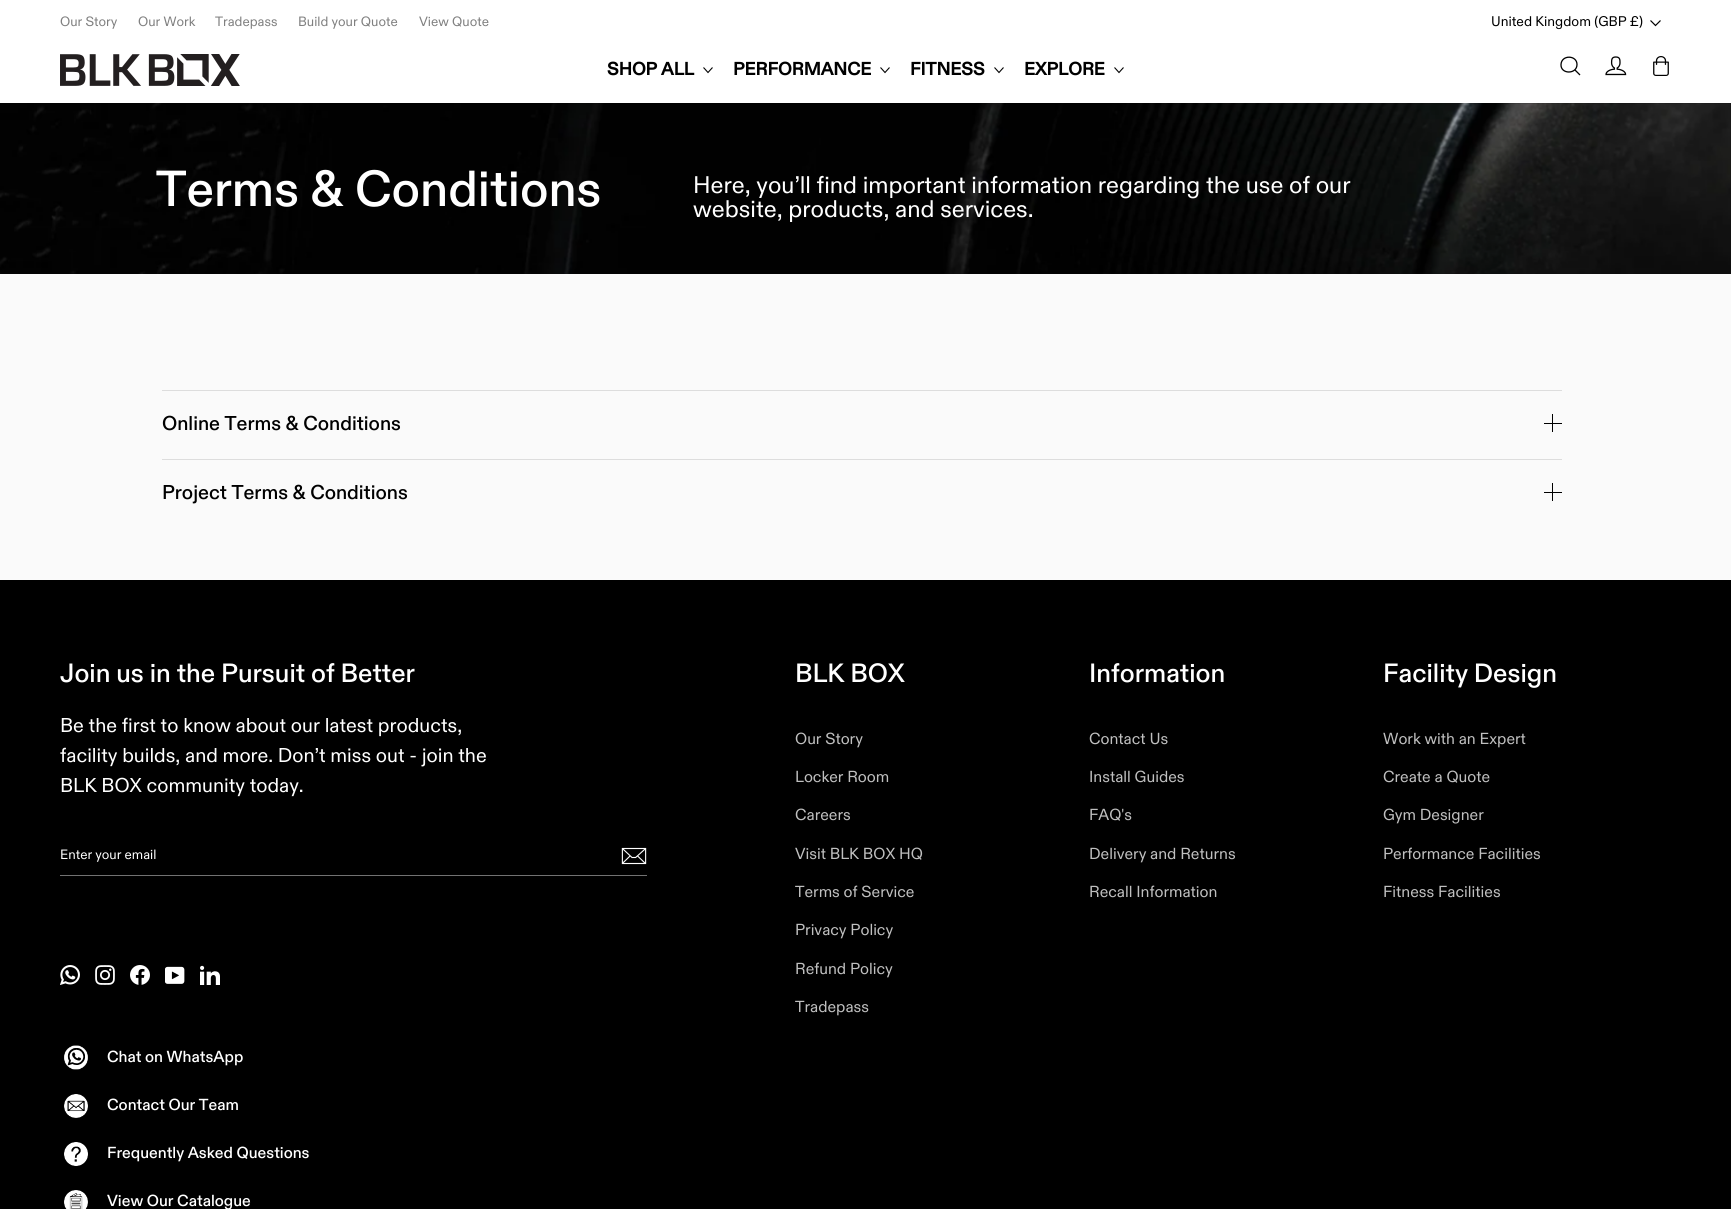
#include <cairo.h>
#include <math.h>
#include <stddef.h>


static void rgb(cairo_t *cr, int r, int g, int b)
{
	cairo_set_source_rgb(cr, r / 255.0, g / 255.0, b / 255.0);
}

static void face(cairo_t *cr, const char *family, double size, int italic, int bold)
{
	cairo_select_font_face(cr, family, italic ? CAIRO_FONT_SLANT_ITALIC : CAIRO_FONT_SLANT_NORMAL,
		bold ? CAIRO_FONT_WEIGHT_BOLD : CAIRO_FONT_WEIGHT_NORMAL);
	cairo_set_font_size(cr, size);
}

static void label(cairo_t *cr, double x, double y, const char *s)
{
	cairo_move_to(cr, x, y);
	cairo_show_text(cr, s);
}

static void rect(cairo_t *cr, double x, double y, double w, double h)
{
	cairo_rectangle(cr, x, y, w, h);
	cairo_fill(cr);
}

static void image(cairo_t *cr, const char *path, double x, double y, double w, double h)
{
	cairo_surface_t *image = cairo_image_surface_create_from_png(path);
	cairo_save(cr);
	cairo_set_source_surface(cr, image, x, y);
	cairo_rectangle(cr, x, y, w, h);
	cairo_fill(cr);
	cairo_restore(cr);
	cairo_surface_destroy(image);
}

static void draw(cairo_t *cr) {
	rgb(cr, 250, 250, 250);
	cairo_paint(cr);
	rgb(cr, 255, 255, 255);
	rect(cr, 0, 0, 1731, 103);
	face(cr, "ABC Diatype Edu", 13.5, 0, 0);
	rgb(cr, 128, 128, 128);
	label(cr, 60, 26, "Our Story");
	label(cr, 138, 26, "Our Work");
	label(cr, 215, 26, "Tradepass");
	label(cr, 298, 26, "Build your Quote");
	label(cr, 419, 26, "View Quote");
	face(cr, "ABC Diatype Edu", 14, 0, 0);
	rgb(cr, 0, 0, 0);
	label(cr, 1491, 26, "United Kingdom (GBP £)");
	cairo_new_path(cr);
	cairo_move_to(cr, 1650.5, 20.5);
	cairo_line_to(cr, 1655.5, 25.5);
	cairo_line_to(cr, 1660.5, 20.5);
	cairo_set_line_width(cr, 1.2);
	cairo_stroke(cr);
	rgb(cr, 15, 15, 15);
	rect(cr, 0, 103, 1731, 171);
	image(cr, "image3.png", 0, 103, 1731, 171);
	cairo_set_source_rgba(cr, 0, 0, 0, 0.1);
	rect(cr, 1459, 103, 272, 1);
	image(cr, "image0.png", 60, 54, 180, 32);
	face(cr, "ABC Diatype Edu", 18, 0, 1);
	rgb(cr, 0, 0, 0);
	label(cr, 607, 75, "SHOP ALL");
	cairo_new_path(cr);
	cairo_move_to(cr, 703.5, 67.5);
	cairo_line_to(cr, 708, 72.5);
	cairo_line_to(cr, 712.5, 67.5);
	cairo_set_line_width(cr, 1.1);
	cairo_stroke(cr);
	label(cr, 733, 75, "PERFORMANCE");
	cairo_new_path(cr);
	cairo_move_to(cr, 880.5, 67.5);
	cairo_line_to(cr, 885, 72.5);
	cairo_line_to(cr, 889.5, 67.5);
	cairo_stroke(cr);
	label(cr, 910, 75, "FITNESS");
	cairo_new_path(cr);
	cairo_move_to(cr, 994.5, 67.5);
	cairo_line_to(cr, 999, 72.5);
	cairo_line_to(cr, 1003.5, 67.5);
	cairo_stroke(cr);
	label(cr, 1024, 75, "EXPLORE");
	cairo_new_path(cr);
	cairo_move_to(cr, 1114.5, 67.5);
	cairo_line_to(cr, 1119, 72.5);
	cairo_line_to(cr, 1123.5, 67.5);
	cairo_stroke(cr);
	cairo_new_path(cr);
	cairo_move_to(cr, 1580, 75);
	cairo_line_to(cr, 1575, 70);
	cairo_move_to(cr, 1577, 64.5);
	cairo_curve_to(cr, 1577, 74.5, 1560.5, 74.5, 1561, 64.5);
	cairo_curve_to(cr, 1561.5, 54.5, 1577, 55, 1577, 64.5);
	cairo_close_path(cr);
	cairo_set_line_width(cr, 1.3);
	cairo_stroke(cr);
	image(cr, "image1.png", 1605, 56, 22, 20);
	image(cr, "image2.png", 1653, 56, 16, 20);
	face(cr, "ABC Diatype Edu Medium", 50.5, 0, 0);
	rgb(cr, 255, 255, 255);
	label(cr, 156, 206, "Terms & Conditions");
	face(cr, "ABC Diatype Edu", 24, 0, 0);
	label(cr, 693, 193, "Here, you’ll find important information regarding the use of our");
	label(cr, 693, 217, "website, products, and services.");
	rgb(cr, 221, 221, 221);
	rect(cr, 162, 390, 1400, 1);
	face(cr, "ABC Diatype Edu Medium", 20, 0, 0);
	rgb(cr, 0, 0, 0);
	label(cr, 162, 430, "Online Terms & Conditions");
	rect(cr, 1552, 414, 1, 18);
	rect(cr, 1544, 423, 18, 1);
	rgb(cr, 221, 221, 221);
	rect(cr, 162, 459, 1400, 1);
	rgb(cr, 0, 0, 0);
	label(cr, 162, 499, "Project Terms & Conditions");
	rect(cr, 1552, 483, 1, 18);
	rect(cr, 1544, 492, 18, 1);
	rect(cr, 0, 580, 1731, 629);
	face(cr, "ABC Diatype Edu Medium", 26.4, 0, 0);
	rgb(cr, 255, 255, 255);
	label(cr, 60, 682, "Join us in the Pursuit of Better");
	face(cr, "ABC Diatype Edu", 20, 0, 0);
	label(cr, 60, 732, "Be the first to know about our latest products,");
	label(cr, 60, 762, "facility builds, and more. Don’t miss out - join the");
	label(cr, 60, 792, "BLK BOX community today.");
	rgb(cr, 114, 114, 114);
	rect(cr, 60, 875, 587, 1);
	face(cr, "ABC Diatype Edu", 13.5, 0, 0);
	rgb(cr, 255, 255, 255);
	label(cr, 60, 859, "Enter your email");
	image(cr, "image4.png", 621, 847, 26, 18);
	image(cr, "image5.png", 60, 965, 20, 20);
	image(cr, "image6.png", 95, 965, 20, 20);
	image(cr, "image7.png", 130, 965, 20, 20);
	image(cr, "image8.png", 165, 966, 20, 18);
	image(cr, "image9.png", 200, 965, 20, 20);
	image(cr, "image10.png", 64, 1045, 24, 25);
	face(cr, "ABC Diatype Edu Medium", 16, 0, 0);
	label(cr, 107, 1062, "Chat on WhatsApp");
	image(cr, "image11.png", 64, 1094, 24, 24);
	label(cr, 107, 1110, "Contact Our Team");
	image(cr, "image12.png", 64, 1142, 24, 24);
	label(cr, 107, 1158, "Frequently Asked Questions");
	image(cr, "image13.png", 64, 1190, 24, 19);
	label(cr, 107, 1206, "View Our Catalogue");
	face(cr, "ABC Diatype Edu Medium", 26.4, 0, 0);
	label(cr, 795, 682, "BLK BOX");
	face(cr, "ABC Diatype Edu", 16, 0, 0);
	rgb(cr, 191, 191, 191);
	label(cr, 795, 744, "Our Story");
	label(cr, 795, 782, "Locker Room");
	label(cr, 795, 820, "Careers");
	label(cr, 795, 859, "Visit BLK BOX HQ");
	label(cr, 795, 897, "Terms of Service");
	label(cr, 795, 935, "Privacy Policy");
	label(cr, 795, 974, "Refund Policy");
	label(cr, 795, 1012, "Tradepass");
	face(cr, "ABC Diatype Edu Medium", 26.4, 0, 0);
	rgb(cr, 255, 255, 255);
	label(cr, 1089, 682, "Information");
	face(cr, "ABC Diatype Edu", 16, 0, 0);
	rgb(cr, 191, 191, 191);
	label(cr, 1089, 744, "Contact Us");
	label(cr, 1089, 782, "Install Guides");
	label(cr, 1089, 820, "FAQ's");
	label(cr, 1089, 859, "Delivery and Returns");
	label(cr, 1089, 897, "Recall Information");
	face(cr, "ABC Diatype Edu Medium", 26.4, 0, 0);
	rgb(cr, 255, 255, 255);
	label(cr, 1383, 682, "Facility Design");
	face(cr, "ABC Diatype Edu", 16, 0, 0);
	rgb(cr, 191, 191, 191);
	label(cr, 1383, 744, "Work with an Expert");
	label(cr, 1383, 782, "Create a Quote");
	label(cr, 1383, 820, "Gym Designer");
	label(cr, 1383, 859, "Performance Facilities");
	label(cr, 1383, 897, "Fitness Facilities");
}

int main(void) {
	cairo_surface_t *surface = cairo_image_surface_create(CAIRO_FORMAT_RGB24, 1731, 1209);
	cairo_t *cr = cairo_create(surface);
	cairo_font_options_t *options = cairo_font_options_create();
	cairo_font_options_set_hint_metrics(options, CAIRO_HINT_METRICS_OFF);
	cairo_font_options_set_hint_style(options, CAIRO_HINT_STYLE_NONE);
	cairo_set_font_options(cr, options);
	cairo_set_miter_limit(cr, 4);
	draw(cr);
	cairo_surface_write_to_png(surface, "render.png");
	cairo_font_options_destroy(options);
	cairo_destroy(cr);
	cairo_surface_destroy(surface);
	return 0;
}
